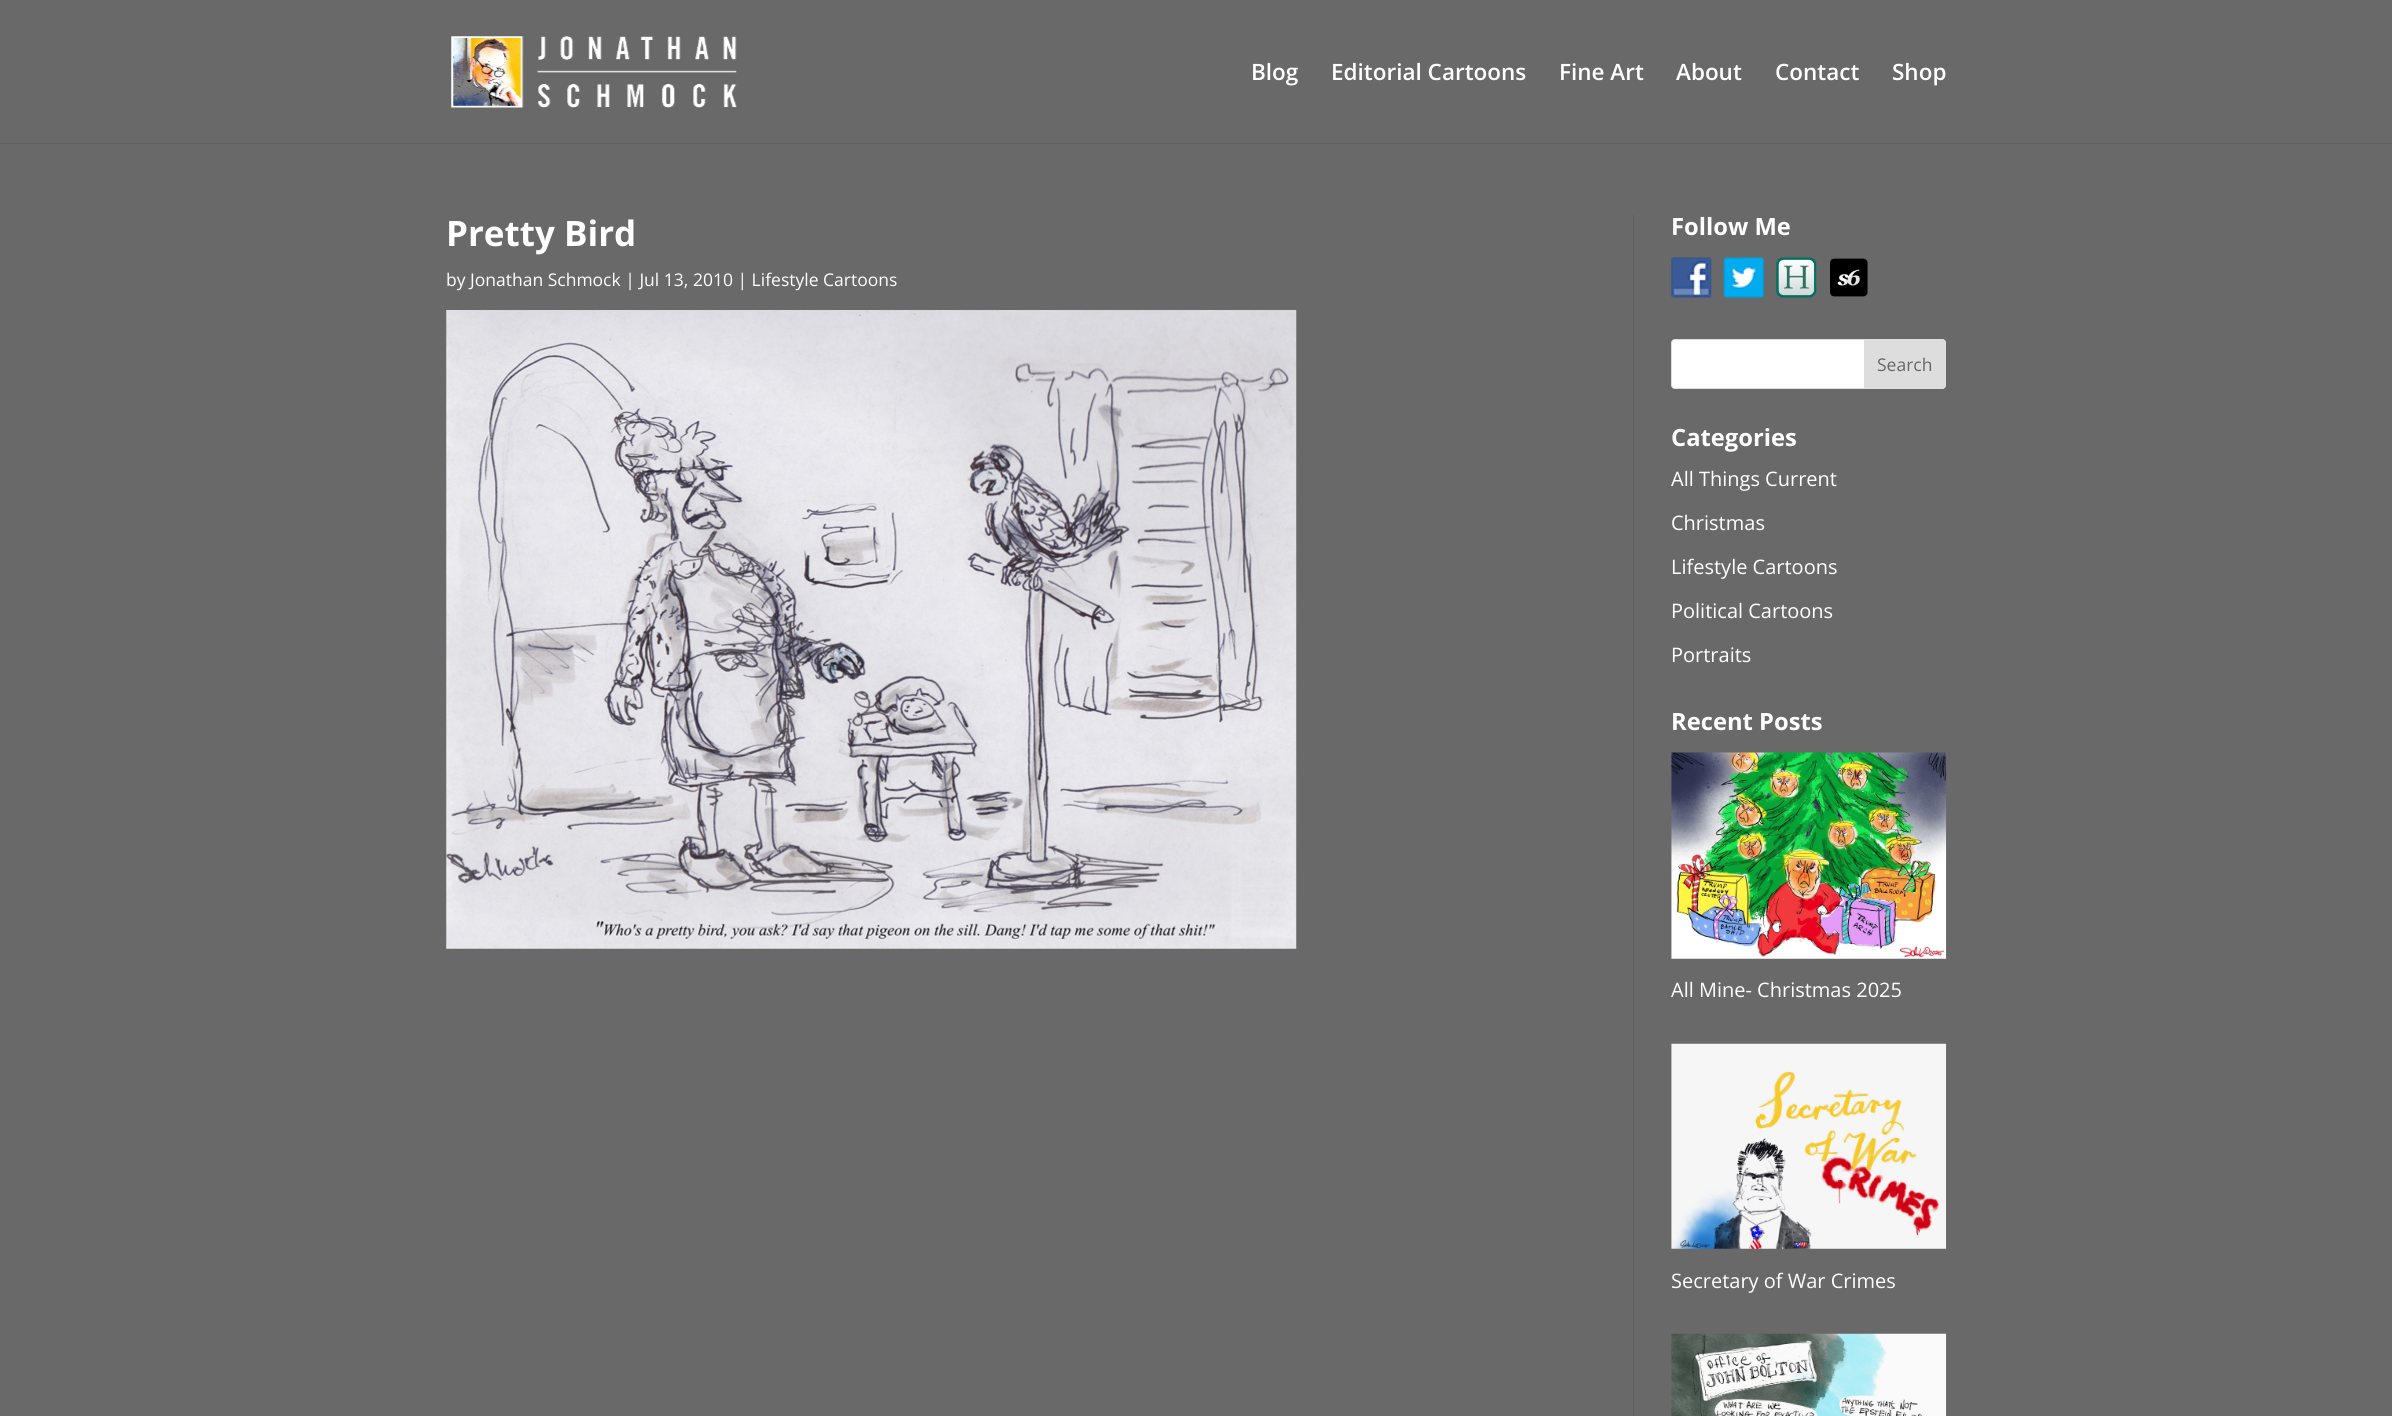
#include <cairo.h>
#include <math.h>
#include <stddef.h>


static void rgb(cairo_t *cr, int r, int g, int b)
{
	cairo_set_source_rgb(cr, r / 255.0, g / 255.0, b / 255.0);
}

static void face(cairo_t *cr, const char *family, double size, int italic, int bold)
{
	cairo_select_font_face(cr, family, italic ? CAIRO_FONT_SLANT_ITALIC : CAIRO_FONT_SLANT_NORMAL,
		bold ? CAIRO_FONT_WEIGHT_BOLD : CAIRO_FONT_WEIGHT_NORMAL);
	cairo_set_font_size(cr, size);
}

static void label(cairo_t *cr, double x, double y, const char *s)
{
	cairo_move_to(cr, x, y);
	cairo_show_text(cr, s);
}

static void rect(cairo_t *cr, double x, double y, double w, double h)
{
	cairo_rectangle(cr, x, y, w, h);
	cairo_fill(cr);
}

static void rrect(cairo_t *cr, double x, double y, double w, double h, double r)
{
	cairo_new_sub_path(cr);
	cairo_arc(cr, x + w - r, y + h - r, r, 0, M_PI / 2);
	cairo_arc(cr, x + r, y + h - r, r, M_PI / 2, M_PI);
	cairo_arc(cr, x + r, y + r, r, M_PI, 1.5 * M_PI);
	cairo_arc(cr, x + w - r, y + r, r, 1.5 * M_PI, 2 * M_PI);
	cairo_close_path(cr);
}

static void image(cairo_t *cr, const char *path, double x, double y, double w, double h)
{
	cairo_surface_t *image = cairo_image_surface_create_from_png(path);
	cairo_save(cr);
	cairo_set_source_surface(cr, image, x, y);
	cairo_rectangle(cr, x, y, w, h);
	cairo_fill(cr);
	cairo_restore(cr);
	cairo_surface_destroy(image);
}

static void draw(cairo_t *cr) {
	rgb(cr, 105, 105, 105);
	cairo_paint(cr);
	rgb(cr, 95, 95, 95);
	cairo_new_path(cr);
	cairo_move_to(cr, 0, 142);
	cairo_line_to(cr, 0, 144);
	cairo_line_to(cr, 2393, 144);
	cairo_line_to(cr, 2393, 1);
	cairo_line_to(cr, 2392, 1);
	cairo_line_to(cr, 2392, 142);
	cairo_close_path(cr);
	cairo_fill(cr);
	rgb(cr, 105, 105, 105);
	rect(cr, 0, 142, 2392, 1);
	image(cr, "image0.png", 451, 36, 286, 72);
	face(cr, "Open Sans SemiBold", 22.5, 0, 0);
	rgb(cr, 255, 255, 255);
	label(cr, 1251, 80, "Blog");
	label(cr, 1331, 80, "Editorial Cartoons");
	label(cr, 1559, 80, "Fine Art");
	label(cr, 1676, 80, "About");
	label(cr, 1775, 80, "Contact");
	label(cr, 1892, 80, "Shop");
	rgb(cr, 94, 94, 94);
	rect(cr, 1633, 215, 1, 1201);
	face(cr, "Open Sans", 35, 0, 1);
	rgb(cr, 255, 255, 255);
	label(cr, 446, 246, "Pretty Bird");
	face(cr, "Open Sans", 17.5, 0, 0);
	label(cr, 446, 286, "by Jonathan Schmock | Jul 13, 2010 | Lifestyle Cartoons");
	image(cr, "image1.png", 446, 310, 851, 639);
	face(cr, "Open Sans", 23.75, 0, 1);
	label(cr, 1671, 235, "Follow Me");
	image(cr, "image2.png", 1671, 257, 41, 41);
	image(cr, "image3.png", 1723, 257, 41, 41);
	image(cr, "image4.png", 1776, 257, 41, 41);
	image(cr, "image5.png", 1830, 258, 38, 39);
	rrect(cr, 1671.5, 339.5, 274, 49, 3.5);
	cairo_fill_preserve(cr);
	rgb(cr, 221, 221, 221);
	cairo_set_line_width(cr, 1);
	cairo_stroke(cr);
	cairo_new_path(cr);
	cairo_move_to(cr, 1864.5, 339.5);
	cairo_line_to(cr, 1942, 339.5);
	cairo_curve_to(cr, 1944, 339.5, 1945.5, 341, 1945.5, 343);
	cairo_line_to(cr, 1945.5, 385);
	cairo_curve_to(cr, 1945.5, 387, 1944, 388.5, 1942, 388.5);
	cairo_line_to(cr, 1864.5, 388.5);
	cairo_close_path(cr);
	cairo_fill_preserve(cr);
	cairo_stroke(cr);
	face(cr, "Open Sans", 17.5, 0, 0);
	rgb(cr, 102, 102, 102);
	label(cr, 1877, 371, "Search");
	face(cr, "Open Sans", 23.75, 0, 1);
	rgb(cr, 255, 255, 255);
	label(cr, 1671, 446, "Categories");
	face(cr, "Open Sans", 20, 0, 0);
	label(cr, 1671, 486, "All Things Current");
	label(cr, 1671, 530, "Christmas");
	label(cr, 1671, 574, "Lifestyle Cartoons");
	label(cr, 1671, 618, "Political Cartoons");
	label(cr, 1671, 662, "Portraits");
	face(cr, "Open Sans", 23.75, 0, 1);
	label(cr, 1671, 730, "Recent Posts");
	image(cr, "image6.png", 1671, 752, 276, 207);
	face(cr, "Open Sans", 20, 0, 0);
	label(cr, 1671, 997, "All Mine- Christmas 2025");
	image(cr, "image7.png", 1671, 1043, 276, 206);
	label(cr, 1671, 1288, "Secretary of War Crimes");
	image(cr, "image8.png", 1671, 1333, 276, 83);
}

int main(void) {
	cairo_surface_t *surface = cairo_image_surface_create(CAIRO_FORMAT_RGB24, 2392, 1416);
	cairo_t *cr = cairo_create(surface);
	cairo_font_options_t *options = cairo_font_options_create();
	cairo_font_options_set_hint_metrics(options, CAIRO_HINT_METRICS_OFF);
	cairo_font_options_set_hint_style(options, CAIRO_HINT_STYLE_NONE);
	cairo_set_font_options(cr, options);
	cairo_set_miter_limit(cr, 4);
	draw(cr);
	cairo_surface_write_to_png(surface, "render.png");
	cairo_font_options_destroy(options);
	cairo_destroy(cr);
	cairo_surface_destroy(surface);
	return 0;
}
